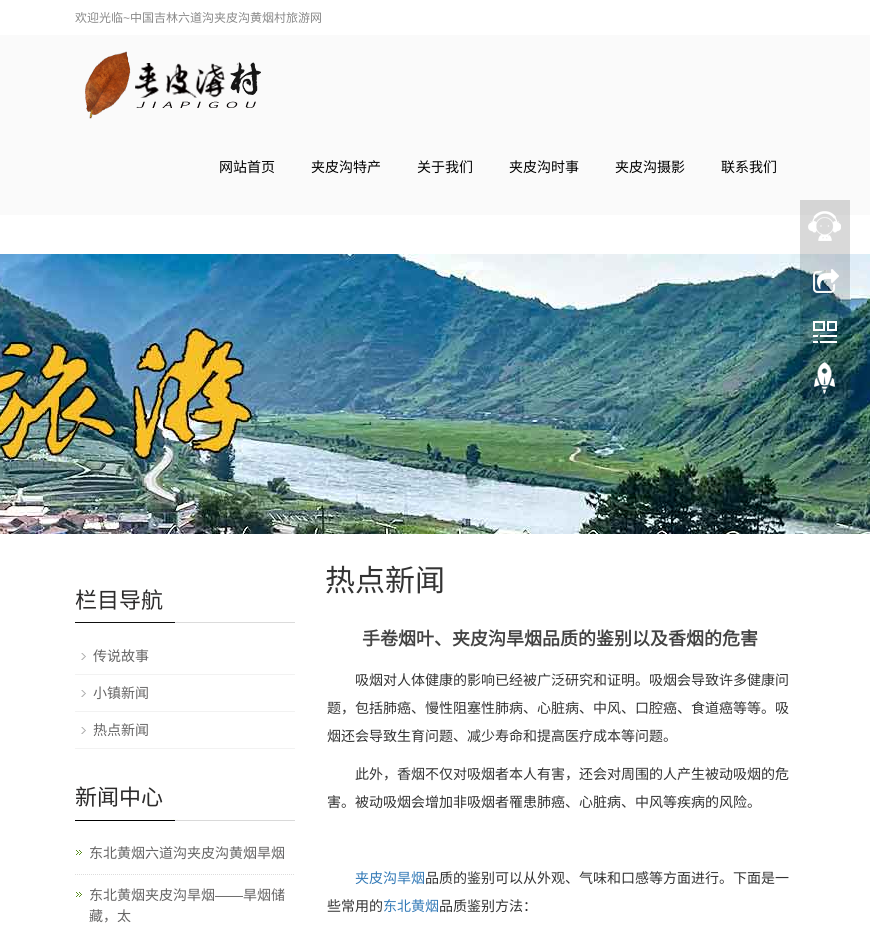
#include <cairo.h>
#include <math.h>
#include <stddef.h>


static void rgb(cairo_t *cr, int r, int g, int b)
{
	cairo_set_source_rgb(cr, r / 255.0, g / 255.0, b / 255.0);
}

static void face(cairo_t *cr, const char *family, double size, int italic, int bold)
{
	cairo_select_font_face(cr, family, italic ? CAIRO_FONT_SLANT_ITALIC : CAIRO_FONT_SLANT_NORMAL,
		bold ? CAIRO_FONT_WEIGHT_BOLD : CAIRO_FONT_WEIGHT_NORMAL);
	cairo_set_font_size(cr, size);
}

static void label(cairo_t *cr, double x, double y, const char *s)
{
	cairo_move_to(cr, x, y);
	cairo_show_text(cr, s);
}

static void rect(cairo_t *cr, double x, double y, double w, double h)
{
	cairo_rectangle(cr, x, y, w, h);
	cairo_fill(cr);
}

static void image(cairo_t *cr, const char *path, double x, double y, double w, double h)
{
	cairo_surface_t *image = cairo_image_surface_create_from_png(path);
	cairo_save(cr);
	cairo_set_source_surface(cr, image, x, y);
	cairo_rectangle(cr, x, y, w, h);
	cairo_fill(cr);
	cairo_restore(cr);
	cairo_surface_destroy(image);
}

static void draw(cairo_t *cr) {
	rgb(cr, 255, 255, 255);
	cairo_paint(cr);
	face(cr, "Noto Sans CJK SC", 12, 0, 0);
	rgb(cr, 136, 136, 136);
	label(cr, 75, 22, "欢迎光临");
	face(cr, "Liberation Sans", 12, 0, 0);
	label(cr, 123, 22, "~");
	face(cr, "Noto Sans CJK SC", 12, 0, 0);
	label(cr, 130, 22, "中国吉林六道沟夹皮沟黄烟村旅游网");
	rgb(cr, 250, 250, 250);
	rect(cr, 0, 35, 870, 180);
	image(cr, "image0.png", 85, 51, 176, 68);
	face(cr, "Noto Sans CJK SC", 14, 0, 0);
	rgb(cr, 0, 0, 0);
	label(cr, 219, 172, "网站首页");
	label(cr, 311, 172, "夹皮沟特产");
	label(cr, 417, 172, "关于我们");
	label(cr, 509, 172, "夹皮沟时事");
	label(cr, 615, 172, "夹皮沟摄影");
	label(cr, 721, 172, "联系我们");
	image(cr, "image2.png", 0, 254, 870, 280);
	image(cr, "image1.png", 800, 200, 50, 200);
	image(cr, "image3.png", 75, 621, 220, 2);
	face(cr, "Noto Sans CJK SC", 22, 0, 0);
	rgb(cr, 44, 43, 43);
	label(cr, 75, 608, "栏目导航");
	image(cr, "image4.png", 81, 653, 5, 7);
	rgb(cr, 242, 242, 242);
	rect(cr, 75, 674, 220, 1);
	face(cr, "Noto Sans CJK SC", 14, 0, 0);
	rgb(cr, 101, 100, 100);
	label(cr, 93, 661, "传说故事");
	image(cr, "image4.png", 81, 690, 5, 7);
	rgb(cr, 242, 242, 242);
	rect(cr, 75, 711, 220, 1);
	rgb(cr, 101, 100, 100);
	label(cr, 93, 698, "小镇新闻");
	image(cr, "image4.png", 81, 727, 5, 7);
	rgb(cr, 242, 242, 242);
	rect(cr, 75, 748, 220, 1);
	rgb(cr, 101, 100, 100);
	label(cr, 93, 735, "热点新闻");
	image(cr, "image5.png", 75, 819, 220, 2);
	face(cr, "Noto Sans CJK SC", 22, 0, 0);
	rgb(cr, 44, 43, 43);
	label(cr, 75, 805, "新闻中心");
	image(cr, "image6.png", 76, 850, 6, 5);
	cairo_new_path(cr);
	cairo_move_to(cr, 75, 874.5);
	cairo_line_to(cr, 295, 874.5);
	rgb(cr, 221, 221, 221);
	cairo_set_line_width(cr, 1);
	cairo_set_dash(cr, (double[]){1, 1}, 2, 0);
	cairo_stroke(cr);
	face(cr, "Noto Sans CJK SC", 14, 0, 0);
	rgb(cr, 101, 100, 100);
	label(cr, 89, 858, "东北黄烟六道沟夹皮沟黄烟旱烟");
	image(cr, "image6.png", 76, 892, 6, 5);
	label(cr, 89, 900, "东北黄烟夹皮沟旱烟");
	face(cr, "Liberation Sans", 14, 0, 0);
	label(cr, 215, 900, "——");
	face(cr, "Noto Sans CJK SC", 14, 0, 0);
	label(cr, 243, 900, "旱烟储");
	label(cr, 89, 921, "藏，太");
	face(cr, "Noto Sans CJK SC", 30, 0, 0);
	rgb(cr, 51, 51, 51);
	label(cr, 325, 591, "热点新闻");
	face(cr, "Noto Sans CJK SC", 18, 0, 1);
	rgb(cr, 67, 67, 67);
	label(cr, 362, 645, "手卷烟叶、夹皮沟旱烟品质的鉴别以及香烟的危害");
	face(cr, "Noto Sans CJK SC", 14, 0, 0);
	rgb(cr, 51, 51, 51);
	label(cr, 355, 685, "吸烟对人体健康的影响已经被广泛研究和证明。吸烟会导致许多健康问");
	label(cr, 327, 713, "题，包括肺癌、慢性阻塞性肺病、心脏病、中风、口腔癌、食道癌等等。吸");
	label(cr, 327, 741, "烟还会导致生育问题、减少寿命和提高医疗成本等问题。");
	label(cr, 355, 779, "此外，香烟不仅对吸烟者本人有害，还会对周围的人产生被动吸烟的危");
	label(cr, 327, 807, "害。被动吸烟会增加非吸烟者罹患肺癌、心脏病、中风等疾病的风险。");
	rgb(cr, 51, 122, 183);
	label(cr, 355, 883, "夹皮沟旱烟");
	rgb(cr, 51, 51, 51);
	label(cr, 425, 883, "品质的鉴别可以从外观、气味和口感等方面进行。下面是一");
	label(cr, 327, 911, "些常用的");
	rgb(cr, 51, 122, 183);
	label(cr, 383, 911, "东北黄烟");
	rgb(cr, 51, 51, 51);
	label(cr, 439, 911, "品质鉴别方法：");
}

int main(void) {
	cairo_surface_t *surface = cairo_image_surface_create(CAIRO_FORMAT_RGB24, 870, 930);
	cairo_t *cr = cairo_create(surface);
	cairo_font_options_t *options = cairo_font_options_create();
	cairo_font_options_set_hint_metrics(options, CAIRO_HINT_METRICS_OFF);
	cairo_font_options_set_hint_style(options, CAIRO_HINT_STYLE_NONE);
	cairo_set_font_options(cr, options);
	cairo_set_miter_limit(cr, 4);
	draw(cr);
	cairo_surface_write_to_png(surface, "render.png");
	cairo_font_options_destroy(options);
	cairo_destroy(cr);
	cairo_surface_destroy(surface);
	return 0;
}
